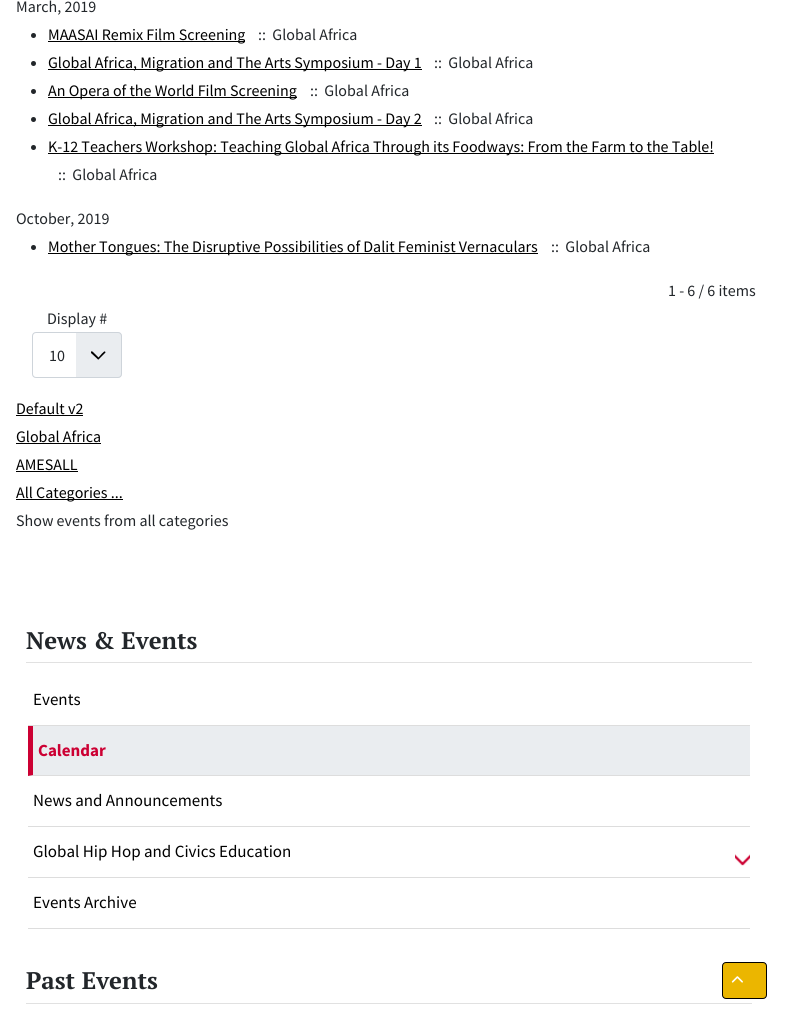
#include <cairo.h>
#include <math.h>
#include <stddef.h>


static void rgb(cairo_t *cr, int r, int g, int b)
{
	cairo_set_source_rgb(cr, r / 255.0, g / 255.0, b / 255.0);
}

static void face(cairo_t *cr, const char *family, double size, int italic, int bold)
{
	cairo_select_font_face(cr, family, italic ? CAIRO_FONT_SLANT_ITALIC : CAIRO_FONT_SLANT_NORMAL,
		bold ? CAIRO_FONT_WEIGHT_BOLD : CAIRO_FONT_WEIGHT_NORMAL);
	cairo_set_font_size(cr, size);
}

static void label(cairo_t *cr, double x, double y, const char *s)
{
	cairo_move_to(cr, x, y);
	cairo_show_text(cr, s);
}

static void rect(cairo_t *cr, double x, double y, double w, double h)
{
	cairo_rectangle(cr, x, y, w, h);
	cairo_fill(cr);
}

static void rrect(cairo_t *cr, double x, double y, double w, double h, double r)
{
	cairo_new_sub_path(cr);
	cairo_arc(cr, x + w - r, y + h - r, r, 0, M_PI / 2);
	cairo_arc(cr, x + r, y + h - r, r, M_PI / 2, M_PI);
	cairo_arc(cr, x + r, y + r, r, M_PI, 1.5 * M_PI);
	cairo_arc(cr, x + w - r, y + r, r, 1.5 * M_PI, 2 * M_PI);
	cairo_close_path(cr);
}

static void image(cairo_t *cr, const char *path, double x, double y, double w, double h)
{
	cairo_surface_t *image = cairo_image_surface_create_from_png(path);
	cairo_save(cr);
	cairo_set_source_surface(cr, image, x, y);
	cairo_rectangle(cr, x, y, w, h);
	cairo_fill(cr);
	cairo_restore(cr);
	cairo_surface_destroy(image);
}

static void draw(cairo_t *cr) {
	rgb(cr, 255, 255, 255);
	cairo_paint(cr);
	face(cr, "Source Sans Pro", 16, 0, 0);
	rgb(cr, 34, 38, 42);
	label(cr, 16, 12, "March, 2019");
	cairo_new_path(cr);
	cairo_arc(cr, 33.5, 35.5, 2.5, 0, 2 * M_PI);
	cairo_fill(cr);
	rgb(cr, 0, 0, 0);
	rect(cr, 48, 41, 197, 1);
	label(cr, 48, 40, "MAASAI Remix Film Screening");
	rgb(cr, 34, 38, 42);
	label(cr, 258, 40, "::  Global Africa");
	cairo_new_path(cr);
	cairo_arc(cr, 33.5, 63.5, 2.5, 0, 2 * M_PI);
	cairo_fill(cr);
	rgb(cr, 0, 0, 0);
	rect(cr, 48, 69, 374, 1);
	label(cr, 48, 68, "Global Africa, Migration and The Arts Symposium - Day 1");
	rgb(cr, 34, 38, 42);
	label(cr, 434, 68, "::  Global Africa");
	cairo_new_path(cr);
	cairo_arc(cr, 33.5, 91.5, 2.5, 0, 2 * M_PI);
	cairo_fill(cr);
	rgb(cr, 0, 0, 0);
	rect(cr, 48, 97, 249, 1);
	label(cr, 48, 96, "An Opera of the World Film Screening");
	rgb(cr, 34, 38, 42);
	label(cr, 310, 96, "::  Global Africa");
	cairo_new_path(cr);
	cairo_arc(cr, 33.5, 119.5, 2.5, 0, 2 * M_PI);
	cairo_fill(cr);
	rgb(cr, 0, 0, 0);
	rect(cr, 48, 125, 374, 1);
	label(cr, 48, 124, "Global Africa, Migration and The Arts Symposium - Day 2");
	rgb(cr, 34, 38, 42);
	label(cr, 434, 124, "::  Global Africa");
	cairo_new_path(cr);
	cairo_arc(cr, 33.5, 147.5, 2.5, 0, 2 * M_PI);
	cairo_fill(cr);
	rgb(cr, 0, 0, 0);
	rect(cr, 48, 153, 666, 1);
	label(cr, 48, 152, "K-12 Teachers Workshop: Teaching Global Africa Through its Foodways: From the Farm to the Table!");
	rgb(cr, 34, 38, 42);
	label(cr, 58, 180, "::  Global Africa");
	label(cr, 16, 224, "October, 2019");
	cairo_new_path(cr);
	cairo_arc(cr, 33.5, 247.5, 2.5, 0, 2 * M_PI);
	cairo_fill(cr);
	rgb(cr, 0, 0, 0);
	rect(cr, 48, 253, 490, 1);
	label(cr, 48, 252, "Mother Tongues: The Disruptive Possibilities of Dalit Feminist Vernaculars");
	rgb(cr, 34, 38, 42);
	label(cr, 551, 252, "::  Global Africa");
	label(cr, 668, 296, "1 - 6 / 6 items");
	label(cr, 47, 324, "Display #");
	rgb(cr, 234, 237, 240);
	rrect(cr, 32, 332, 90, 46, 4);
	cairo_fill(cr);
	rgb(cr, 0, 0, 0);
	cairo_new_path(cr);
	cairo_move_to(cr, 91, 353);
	cairo_line_to(cr, 97, 358.5);
	cairo_curve_to(cr, 98.5, 360, 98, 360, 99.5, 358.5);
	cairo_line_to(cr, 105.5, 352.5);
	cairo_curve_to(cr, 105, 349.5, 102.5, 353.5, 102, 353.5);
	cairo_line_to(cr, 98.5, 357.5);
	cairo_line_to(cr, 94.5, 353.5);
	cairo_curve_to(cr, 93.5, 352.5, 91, 349.5, 91, 352.5);
	cairo_close_path(cr);
	cairo_fill(cr);
	rgb(cr, 255, 255, 255);
	cairo_new_path(cr);
	cairo_move_to(cr, 36, 332);
	cairo_line_to(cr, 76, 332);
	cairo_line_to(cr, 76, 378);
	cairo_line_to(cr, 36, 378);
	cairo_curve_to(cr, 34, 378, 32, 376, 32, 374);
	cairo_line_to(cr, 32, 336);
	cairo_curve_to(cr, 32, 334, 34, 332, 36, 332);
	cairo_close_path(cr);
	cairo_fill(cr);
	rrect(cr, 32.5, 332.5, 89, 45, 3.5);
	rgb(cr, 206, 212, 218);
	cairo_set_line_width(cr, 1);
	cairo_stroke(cr);
	rgb(cr, 34, 38, 42);
	label(cr, 49, 361, "10");
	rgb(cr, 0, 0, 0);
	label(cr, 16, 414, "Default v2");
	rect(cr, 16, 415, 67, 1);
	label(cr, 16, 442, "Global Africa");
	rect(cr, 16, 443, 85, 1);
	label(cr, 16, 470, "AMESALL");
	rect(cr, 16, 471, 62, 1);
	rect(cr, 16, 499, 107, 1);
	label(cr, 16, 498, "All Categories ...");
	rgb(cr, 34, 38, 42);
	label(cr, 16, 526, "Show events from all categories");
	rgb(cr, 225, 225, 225);
	rect(cr, 26, 662, 726, 1);
	face(cr, "PT Serif", 24, 0, 1);
	rgb(cr, 34, 38, 42);
	label(cr, 26, 649, "News & Events");
	rgb(cr, 221, 221, 221);
	rect(cr, 28, 725, 722, 1);
	face(cr, "Source Sans Pro", 17, 0, 0);
	rgb(cr, 0, 0, 0);
	label(cr, 33, 705, "Events");
	rgb(cr, 234, 237, 240);
	rect(cr, 28, 726, 722, 50);
	rgb(cr, 221, 221, 221);
	cairo_new_path(cr);
	cairo_move_to(cr, 750, 776);
	cairo_line_to(cr, 28, 776);
	cairo_line_to(cr, 33, 775);
	cairo_line_to(cr, 750, 775);
	cairo_close_path(cr);
	cairo_fill(cr);
	rgb(cr, 204, 0, 51);
	cairo_new_path(cr);
	cairo_move_to(cr, 28, 776);
	cairo_line_to(cr, 28, 726);
	cairo_line_to(cr, 33, 726);
	cairo_line_to(cr, 33, 775);
	cairo_close_path(cr);
	cairo_fill(cr);
	face(cr, "Source Sans Pro", 17, 0, 1);
	label(cr, 38, 756, "Calendar");
	rgb(cr, 221, 221, 221);
	rect(cr, 28, 826, 722, 1);
	face(cr, "Source Sans Pro", 17, 0, 0);
	rgb(cr, 0, 0, 0);
	label(cr, 33, 806, "News and Announcements");
	rgb(cr, 221, 221, 221);
	rect(cr, 28, 877, 722, 1);
	rgb(cr, 0, 0, 0);
	label(cr, 33, 857, "Global Hip Hop and Civics Education");
	image(cr, "image0.png", 735, 854, 15, 12);
	rgb(cr, 221, 221, 221);
	rect(cr, 28, 928, 722, 1);
	rgb(cr, 0, 0, 0);
	label(cr, 33, 908, "Events Archive");
	rgb(cr, 225, 225, 225);
	rect(cr, 26, 1003, 726, 1);
	face(cr, "PT Serif", 24, 0, 1);
	rgb(cr, 34, 38, 42);
	label(cr, 26, 989, "Past Events");
	rgb(cr, 235, 182, 0);
	rrect(cr, 722.5, 962.5, 44, 36, 3.5);
	cairo_fill_preserve(cr);
	rgb(cr, 0, 0, 0);
	cairo_stroke(cr);
	image(cr, "image1.png", 731, 976, 12, 7);
}

int main(void) {
	cairo_surface_t *surface = cairo_image_surface_create(CAIRO_FORMAT_RGB24, 788, 1029);
	cairo_t *cr = cairo_create(surface);
	cairo_font_options_t *options = cairo_font_options_create();
	cairo_font_options_set_hint_metrics(options, CAIRO_HINT_METRICS_OFF);
	cairo_font_options_set_hint_style(options, CAIRO_HINT_STYLE_NONE);
	cairo_set_font_options(cr, options);
	cairo_set_miter_limit(cr, 4);
	draw(cr);
	cairo_surface_write_to_png(surface, "render.png");
	cairo_font_options_destroy(options);
	cairo_destroy(cr);
	cairo_surface_destroy(surface);
	return 0;
}
